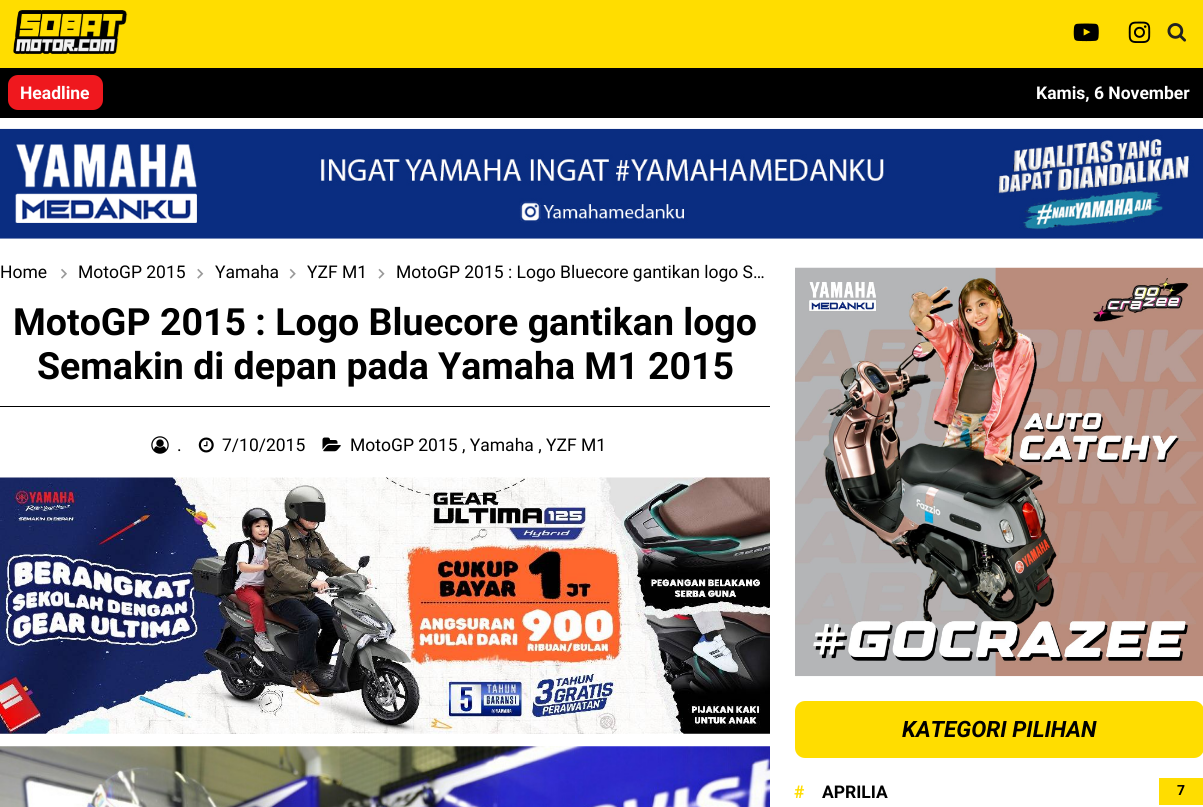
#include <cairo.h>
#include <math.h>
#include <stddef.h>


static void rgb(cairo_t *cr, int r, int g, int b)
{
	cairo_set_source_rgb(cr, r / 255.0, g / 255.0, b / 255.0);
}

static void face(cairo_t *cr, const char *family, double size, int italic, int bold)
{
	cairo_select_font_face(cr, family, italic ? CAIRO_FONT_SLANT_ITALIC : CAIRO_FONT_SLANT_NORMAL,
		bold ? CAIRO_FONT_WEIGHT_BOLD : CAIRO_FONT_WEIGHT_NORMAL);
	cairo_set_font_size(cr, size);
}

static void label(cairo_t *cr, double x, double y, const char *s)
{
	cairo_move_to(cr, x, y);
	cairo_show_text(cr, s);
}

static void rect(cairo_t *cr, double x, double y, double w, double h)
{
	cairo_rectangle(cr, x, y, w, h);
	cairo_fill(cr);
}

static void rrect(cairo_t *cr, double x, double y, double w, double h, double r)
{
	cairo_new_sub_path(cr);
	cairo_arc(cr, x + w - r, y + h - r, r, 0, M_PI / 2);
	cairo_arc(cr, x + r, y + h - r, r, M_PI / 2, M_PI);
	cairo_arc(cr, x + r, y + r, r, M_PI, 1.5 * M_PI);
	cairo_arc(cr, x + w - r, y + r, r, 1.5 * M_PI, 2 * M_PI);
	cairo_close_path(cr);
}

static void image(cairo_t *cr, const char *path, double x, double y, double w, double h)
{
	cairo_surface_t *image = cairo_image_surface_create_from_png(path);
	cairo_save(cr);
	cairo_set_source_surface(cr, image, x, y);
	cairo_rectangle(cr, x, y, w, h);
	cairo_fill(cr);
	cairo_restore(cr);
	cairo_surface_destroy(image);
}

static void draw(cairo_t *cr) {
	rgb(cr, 255, 255, 255);
	cairo_paint(cr);
	rgb(cr, 255, 221, 0);
	rect(cr, 0, 0, 1203, 68);
	image(cr, "image0.png", 13, 10, 115, 44);
	image(cr, "image1.png", 1073, 23, 26, 19);
	image(cr, "image2.png", 1128, 21, 23, 22);
	image(cr, "image3.png", 1167, 23, 20, 19);
	rgb(cr, 0, 0, 0);
	rect(cr, 0, 68, 1203, 50);
	rgb(cr, 239, 24, 30);
	rrect(cr, 8, 75, 95, 35, 10);
	cairo_fill(cr);
	face(cr, "Roboto", 17.5, 0, 1);
	rgb(cr, 255, 255, 255);
	label(cr, 20, 99, "Headline");
	label(cr, 1036, 99, "Kamis, 6 November");
	image(cr, "image4.png", 0, 128, 1203, 111);
	face(cr, "Roboto", 17.5, 0, 0);
	rgb(cr, 0, 0, 0);
	label(cr, 0, 278, "Home");
	image(cr, "image5.png", 61, 268, 6, 11);
	label(cr, 78, 278, "MotoGP 2015");
	image(cr, "image6.png", 197, 268, 7, 11);
	label(cr, 215, 278, "Yamaha");
	image(cr, "image7.png", 289, 268, 7, 11);
	label(cr, 307, 278, "YZF M1");
	image(cr, "image8.png", 378, 268, 7, 11);
	label(cr, 396, 278, "MotoGP 2015 : Logo Bluecore gantikan logo S…");
	rect(cr, 0, 406, 770, 1);
	face(cr, "Roboto", 37.5, 0, 1);
	label(cr, 13, 335, "MotoGP 2015 : Logo Bluecore gantikan logo");
	label(cr, 37, 379, "Semakin di depan pada Yamaha M1 2015");
	image(cr, "image9.png", 151, 436, 18, 18);
	face(cr, "Roboto", 17.5, 0, 0);
	label(cr, 177, 451, ".");
	image(cr, "image10.png", 198, 437, 16, 16);
	label(cr, 222, 451, "7/10/2015");
	image(cr, "image11.png", 322, 437, 19, 15);
	label(cr, 350, 451, "MotoGP 2015 , Yamaha , YZF M1");
	image(cr, "image12.png", 0, 477, 770, 257);
	image(cr, "image13.png", 0, 746, 770, 61);
	image(cr, "image14.png", 795, 267, 408, 410);
	rgb(cr, 255, 221, 0);
	rrect(cr, 795, 701, 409, 57, 10);
	cairo_fill(cr);
	face(cr, "Roboto", 22.5, 1, 1);
	rgb(cr, 0, 0, 0);
	label(cr, 902, 737, "KATEGORI PILIHAN");
	face(cr, "Roboto", 17.5, 0, 1);
	rgb(cr, 255, 221, 0);
	label(cr, 794, 798, "#");
	rgb(cr, 0, 0, 0);
	label(cr, 822, 798, "APRILIA");
	rgb(cr, 255, 221, 0);
	rect(cr, 1159, 778, 44, 27);
	face(cr, "Roboto", 14, 0, 1);
	rgb(cr, 0, 0, 0);
	label(cr, 1177, 795, "7");
}

int main(void) {
	cairo_surface_t *surface = cairo_image_surface_create(CAIRO_FORMAT_RGB24, 1203, 807);
	cairo_t *cr = cairo_create(surface);
	cairo_font_options_t *options = cairo_font_options_create();
	cairo_font_options_set_hint_metrics(options, CAIRO_HINT_METRICS_OFF);
	cairo_font_options_set_hint_style(options, CAIRO_HINT_STYLE_NONE);
	cairo_set_font_options(cr, options);
	cairo_set_miter_limit(cr, 4);
	draw(cr);
	cairo_surface_write_to_png(surface, "render.png");
	cairo_font_options_destroy(options);
	cairo_destroy(cr);
	cairo_surface_destroy(surface);
	return 0;
}
